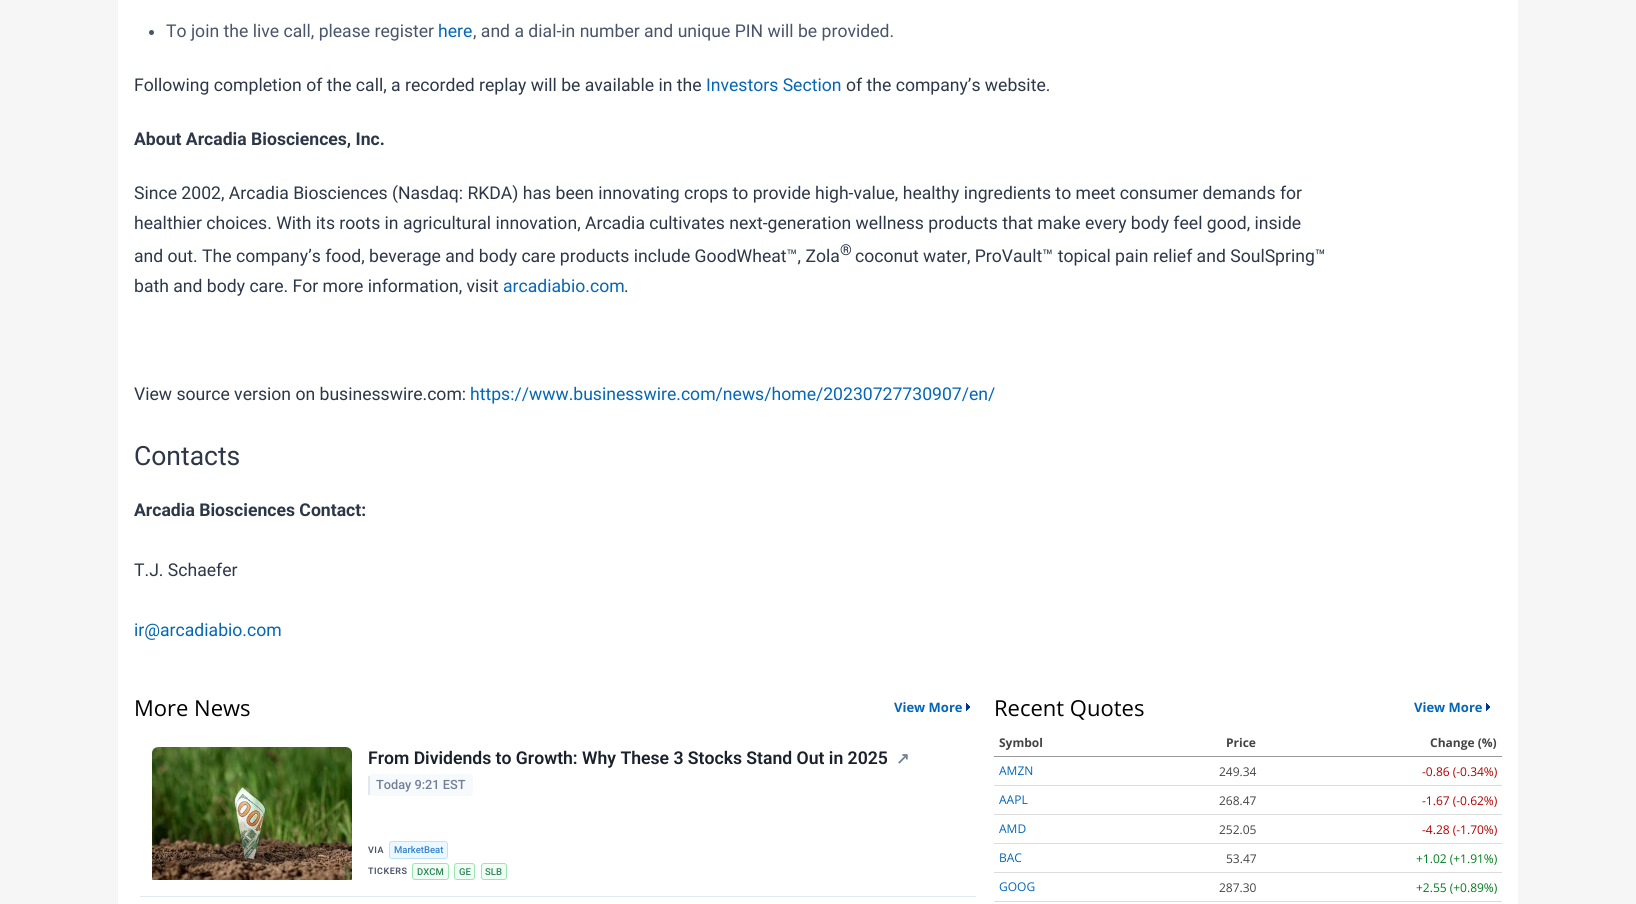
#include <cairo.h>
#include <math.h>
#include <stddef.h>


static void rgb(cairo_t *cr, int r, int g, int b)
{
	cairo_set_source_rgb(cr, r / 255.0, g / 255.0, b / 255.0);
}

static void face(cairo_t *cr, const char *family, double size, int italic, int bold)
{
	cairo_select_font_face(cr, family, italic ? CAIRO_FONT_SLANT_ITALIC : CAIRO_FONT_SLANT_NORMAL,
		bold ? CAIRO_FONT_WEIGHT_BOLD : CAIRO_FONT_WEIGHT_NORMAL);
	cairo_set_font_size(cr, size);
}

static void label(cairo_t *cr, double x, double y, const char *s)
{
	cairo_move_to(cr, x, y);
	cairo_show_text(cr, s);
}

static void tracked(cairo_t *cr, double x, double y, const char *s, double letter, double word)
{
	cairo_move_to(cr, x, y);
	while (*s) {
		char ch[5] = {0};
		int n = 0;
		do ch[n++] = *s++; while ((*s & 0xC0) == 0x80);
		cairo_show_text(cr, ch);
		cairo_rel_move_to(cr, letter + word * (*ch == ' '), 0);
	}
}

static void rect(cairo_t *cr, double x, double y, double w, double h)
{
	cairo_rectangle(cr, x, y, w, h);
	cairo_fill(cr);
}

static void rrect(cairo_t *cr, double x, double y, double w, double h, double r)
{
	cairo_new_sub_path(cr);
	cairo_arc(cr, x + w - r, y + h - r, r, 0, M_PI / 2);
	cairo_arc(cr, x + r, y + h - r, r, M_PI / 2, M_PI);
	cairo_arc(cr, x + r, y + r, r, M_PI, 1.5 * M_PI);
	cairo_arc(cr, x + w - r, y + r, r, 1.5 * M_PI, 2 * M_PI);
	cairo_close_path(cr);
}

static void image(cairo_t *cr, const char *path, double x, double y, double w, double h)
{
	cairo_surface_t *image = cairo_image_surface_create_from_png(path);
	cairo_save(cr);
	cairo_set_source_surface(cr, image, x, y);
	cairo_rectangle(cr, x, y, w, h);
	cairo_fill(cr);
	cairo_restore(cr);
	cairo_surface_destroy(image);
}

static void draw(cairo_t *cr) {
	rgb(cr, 246, 246, 246);
	cairo_paint(cr);
	rgb(cr, 255, 255, 255);
	rect(cr, 118, 0, 1400, 904);
	rgb(cr, 74, 85, 104);
	cairo_arc(cr, 151.5, 32.5, 2.5, 0, 2 * M_PI);
	cairo_fill(cr);
	face(cr, "Roboto", 17.6, 0, 0);
	label(cr, 166, 37, "To join the live call, please register");
	rgb(cr, 4, 102, 182);
	label(cr, 438, 37, "here");
	rgb(cr, 74, 85, 104);
	label(cr, 473, 37, ", and a dial-in number and unique PIN will be provided.");
	rgb(cr, 45, 55, 72);
	label(cr, 134, 91, "Following completion of the call, a recorded replay will be available in the");
	rgb(cr, 4, 102, 182);
	label(cr, 706, 91, "Investors Section");
	rgb(cr, 45, 55, 72);
	label(cr, 846, 91, "of the company’s website.");
	face(cr, "Roboto", 17.6, 0, 1);
	label(cr, 134, 145, "About Arcadia Biosciences, Inc.");
	face(cr, "Roboto", 17.6, 0, 0);
	label(cr, 134, 199, "Since 2002, Arcadia Biosciences (Nasdaq: RKDA) has been innovating crops to provide high-value, healthy ingredients to meet consumer demands for");
	label(cr, 134, 229, "healthier choices. With its roots in agricultural innovation, Arcadia cultivates next-generation wellness products that make every body feel good, inside");
	label(cr, 134, 262, "and out. The company’s food, beverage and body care products include GoodWheat™, Zola");
	face(cr, "Roboto", 15, 0, 0);
	label(cr, 840, 255, "®");
	face(cr, "Roboto", 17.6, 0, 0);
	label(cr, 855, 262, "coconut water, ProVault™ topical pain relief and SoulSpring™");
	label(cr, 134, 292, "bath and body care. For more information, visit");
	rgb(cr, 4, 102, 182);
	label(cr, 503, 292, "arcadiabio.com");
	rgb(cr, 45, 55, 72);
	label(cr, 624, 292, ".");
	label(cr, 134, 400, "View source version on businesswire.com:");
	rgb(cr, 4, 102, 182);
	label(cr, 470, 400, "https://www.businesswire.com/news/home/20230727730907/en/");
	face(cr, "Roboto", 26.5, 0, 0);
	rgb(cr, 45, 55, 72);
	label(cr, 134, 465, "Contacts");
	face(cr, "Roboto", 17.6, 0, 1);
	label(cr, 134, 516, "Arcadia Biosciences Contact:");
	face(cr, "Roboto", 17.6, 0, 0);
	label(cr, 134, 576, "T.J. Schaefer");
	rgb(cr, 4, 102, 182);
	label(cr, 134, 636, "ir@arcadiabio.com");
	face(cr, "Open Sans", 22, 0, 0);
	rgb(cr, 0, 0, 0);
	label(cr, 134, 716, "More News");
	image(cr, "image0.png", 966, 703, 4, 8);
	face(cr, "Open Sans", 13, 0, 1);
	rgb(cr, 4, 102, 182);
	label(cr, 894, 712, "View More");
	rgb(cr, 226, 232, 240);
	rect(cr, 140, 896, 836, 1);
	image(cr, "image1.png", 152, 747, 200, 133);
	face(cr, "Roboto SemiBold", 17.6, 0, 0);
	rgb(cr, 26, 32, 44);
	label(cr, 368, 764, "From Dividends to Growth: Why These 3 Stocks Stand Out in 2025");
	face(cr, "DejaVu Sans", 16, 0, 1);
	rgb(cr, 113, 128, 150);
	label(cr, 896, 764, "↗");
	rgb(cr, 247, 250, 252);
	rrect(cr, 368, 774, 105, 22, 3);
	cairo_fill(cr);
	rgb(cr, 226, 232, 240);
	rect(cr, 368, 776, 2, 19);
	face(cr, "Roboto Medium", 12.75, 0, 0);
	rgb(cr, 113, 128, 150);
	label(cr, 376, 789, "Today 9:21 EST");
	face(cr, "Roboto SemiBold", 9, 0, 0);
	rgb(cr, 74, 85, 104);
	tracked(cr, 368, 853, "VIA", 0.5, 0);
	rgb(cr, 235, 248, 255);
	rrect(cr, 389.5, 841.5, 58, 17, 2.5);
	cairo_fill_preserve(cr);
	rgb(cr, 190, 227, 248);
	cairo_set_line_width(cr, 1);
	cairo_stroke(cr);
	face(cr, "Roboto Medium", 9.5, 0, 0);
	rgb(cr, 49, 130, 206);
	label(cr, 394, 853, "MarketBeat");
	face(cr, "Roboto SemiBold", 9, 0, 0);
	rgb(cr, 74, 85, 104);
	tracked(cr, 368, 874, "TICKERS", 0.5, 0);
	rgb(cr, 240, 255, 244);
	rrect(cr, 412.5, 863.5, 36, 16, 2.5);
	cairo_fill_preserve(cr);
	rgb(cr, 154, 230, 180);
	cairo_stroke(cr);
	face(cr, "Roboto Medium", 9.5, 0, 0);
	rgb(cr, 47, 133, 90);
	label(cr, 417, 875, "DXCM");
	rgb(cr, 240, 255, 244);
	rrect(cr, 454.5, 863.5, 20, 16, 2.5);
	cairo_fill_preserve(cr);
	rgb(cr, 154, 230, 180);
	cairo_stroke(cr);
	rgb(cr, 47, 133, 90);
	label(cr, 459, 875, "GE");
	rgb(cr, 240, 255, 244);
	rrect(cr, 481.5, 863.5, 25, 16, 2.5);
	cairo_fill_preserve(cr);
	rgb(cr, 154, 230, 180);
	cairo_stroke(cr);
	rgb(cr, 47, 133, 90);
	label(cr, 485, 875, "SLB");
	face(cr, "Open Sans", 22, 0, 0);
	rgb(cr, 0, 0, 0);
	label(cr, 994, 716, "Recent Quotes");
	image(cr, "image0.png", 1486, 703, 4, 8);
	face(cr, "Open Sans", 13, 0, 1);
	rgb(cr, 4, 102, 182);
	label(cr, 1414, 712, "View More");
	rgb(cr, 153, 153, 153);
	rect(cr, 994, 756, 508, 1);
	face(cr, "Open Sans", 12, 0, 1);
	rgb(cr, 68, 68, 68);
	label(cr, 999, 747, "Symbol");
	label(cr, 1226, 747, "Price");
	label(cr, 1430, 747, "Change (%)");
	rgb(cr, 221, 221, 221);
	rect(cr, 994, 785, 508, 1);
	face(cr, "Open Sans", 12, 0, 0);
	rgb(cr, 4, 102, 182);
	label(cr, 999, 775, "AMZN");
	rgb(cr, 68, 68, 68);
	label(cr, 1219, 776, "249.34");
	rgb(cr, 181, 0, 0);
	label(cr, 1422, 776, "-0.86 (-0.34%)");
	rgb(cr, 221, 221, 221);
	rect(cr, 994, 814, 508, 1);
	rgb(cr, 4, 102, 182);
	label(cr, 999, 804, "AAPL");
	rgb(cr, 68, 68, 68);
	label(cr, 1219, 805, "268.47");
	rgb(cr, 181, 0, 0);
	label(cr, 1422, 805, "-1.67 (-0.62%)");
	rgb(cr, 221, 221, 221);
	rect(cr, 994, 843, 508, 1);
	rgb(cr, 4, 102, 182);
	label(cr, 999, 833, "AMD");
	rgb(cr, 68, 68, 68);
	label(cr, 1219, 834, "252.05");
	rgb(cr, 181, 0, 0);
	label(cr, 1422, 834, "-4.28 (-1.70%)");
	rgb(cr, 221, 221, 221);
	rect(cr, 994, 872, 508, 1);
	rgb(cr, 4, 102, 182);
	label(cr, 999, 862, "BAC");
	rgb(cr, 68, 68, 68);
	label(cr, 1226, 863, "53.47");
	rgb(cr, 0, 124, 29);
	label(cr, 1416, 863, "+1.02 (+1.91%)");
	rgb(cr, 221, 221, 221);
	rect(cr, 994, 901, 508, 1);
	rgb(cr, 4, 102, 182);
	label(cr, 999, 891, "GOOG");
	rgb(cr, 68, 68, 68);
	label(cr, 1219, 892, "287.30");
	rgb(cr, 0, 124, 29);
	label(cr, 1416, 892, "+2.55 (+0.89%)");
}

int main(void) {
	cairo_surface_t *surface = cairo_image_surface_create(CAIRO_FORMAT_RGB24, 1636, 904);
	cairo_t *cr = cairo_create(surface);
	cairo_font_options_t *options = cairo_font_options_create();
	cairo_font_options_set_hint_metrics(options, CAIRO_HINT_METRICS_OFF);
	cairo_font_options_set_hint_style(options, CAIRO_HINT_STYLE_NONE);
	cairo_set_font_options(cr, options);
	cairo_set_miter_limit(cr, 4);
	draw(cr);
	cairo_surface_write_to_png(surface, "render.png");
	cairo_font_options_destroy(options);
	cairo_destroy(cr);
	cairo_surface_destroy(surface);
	return 0;
}
